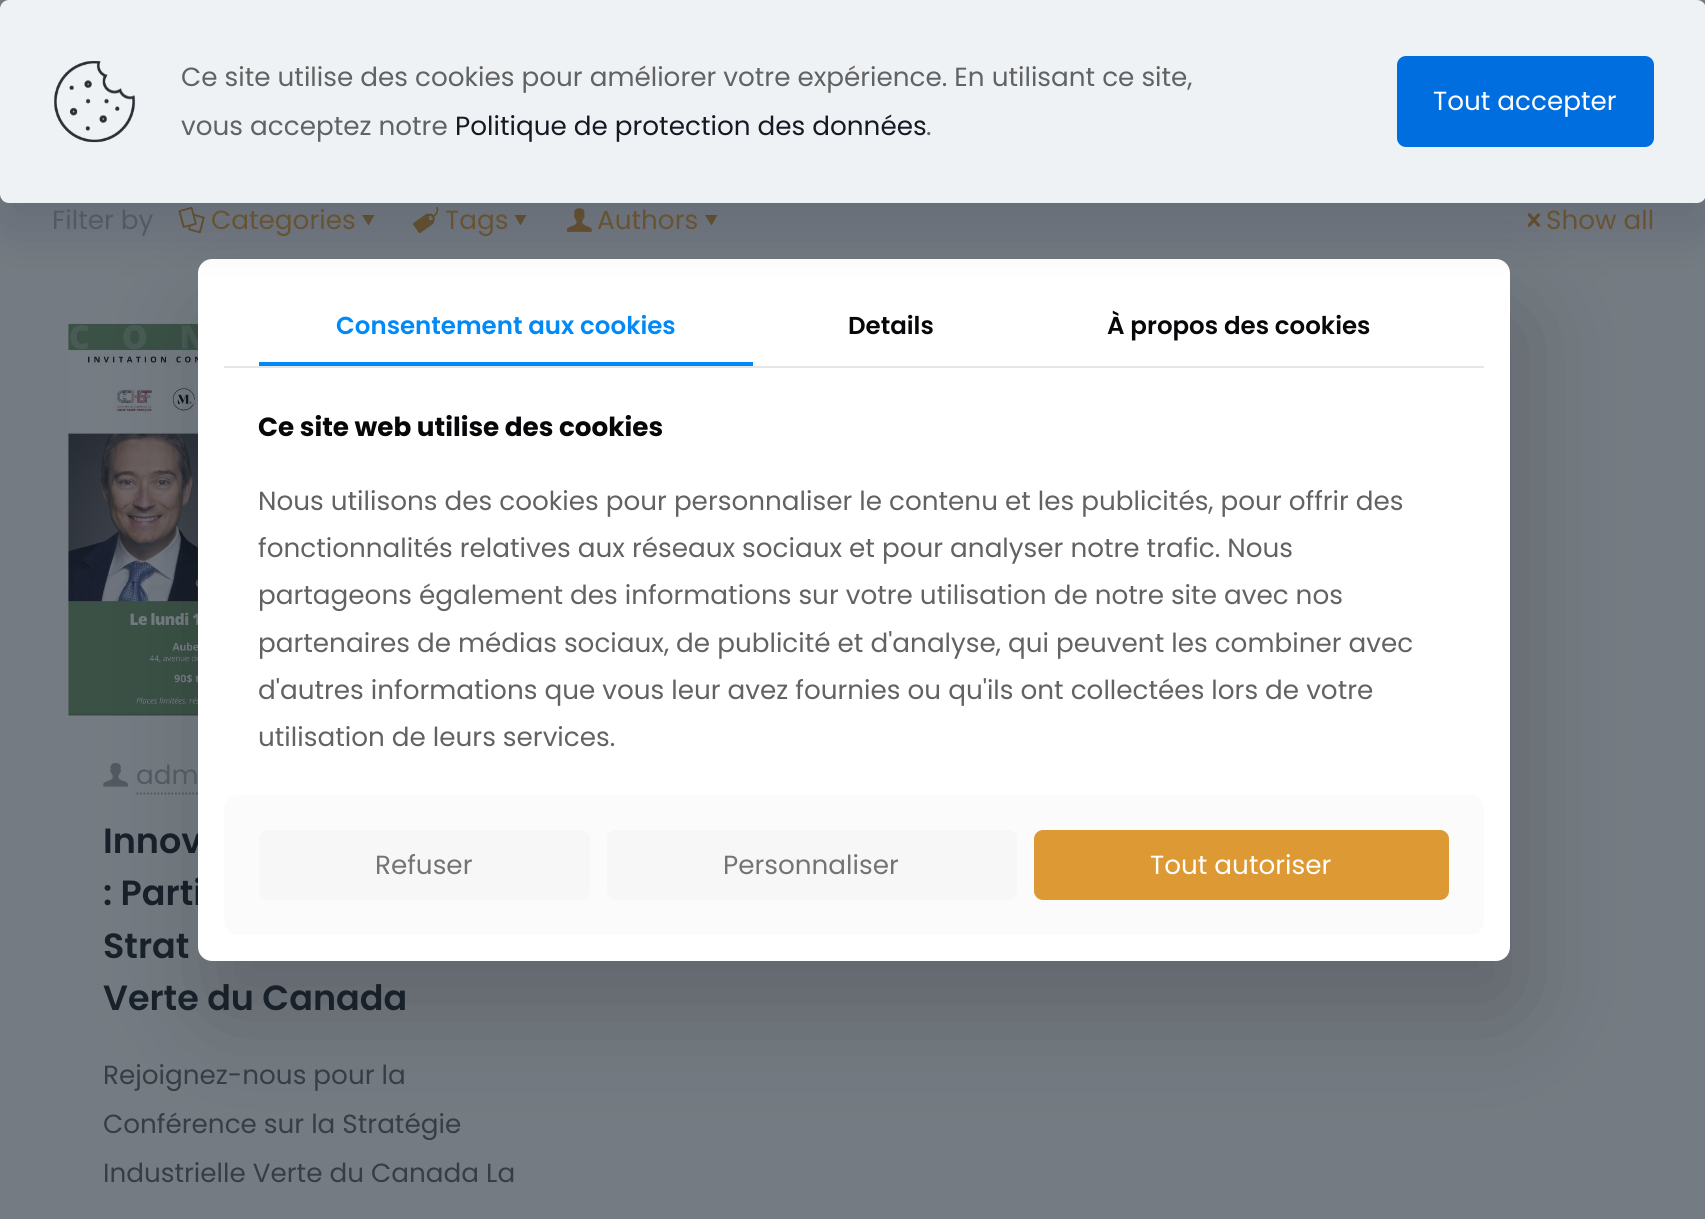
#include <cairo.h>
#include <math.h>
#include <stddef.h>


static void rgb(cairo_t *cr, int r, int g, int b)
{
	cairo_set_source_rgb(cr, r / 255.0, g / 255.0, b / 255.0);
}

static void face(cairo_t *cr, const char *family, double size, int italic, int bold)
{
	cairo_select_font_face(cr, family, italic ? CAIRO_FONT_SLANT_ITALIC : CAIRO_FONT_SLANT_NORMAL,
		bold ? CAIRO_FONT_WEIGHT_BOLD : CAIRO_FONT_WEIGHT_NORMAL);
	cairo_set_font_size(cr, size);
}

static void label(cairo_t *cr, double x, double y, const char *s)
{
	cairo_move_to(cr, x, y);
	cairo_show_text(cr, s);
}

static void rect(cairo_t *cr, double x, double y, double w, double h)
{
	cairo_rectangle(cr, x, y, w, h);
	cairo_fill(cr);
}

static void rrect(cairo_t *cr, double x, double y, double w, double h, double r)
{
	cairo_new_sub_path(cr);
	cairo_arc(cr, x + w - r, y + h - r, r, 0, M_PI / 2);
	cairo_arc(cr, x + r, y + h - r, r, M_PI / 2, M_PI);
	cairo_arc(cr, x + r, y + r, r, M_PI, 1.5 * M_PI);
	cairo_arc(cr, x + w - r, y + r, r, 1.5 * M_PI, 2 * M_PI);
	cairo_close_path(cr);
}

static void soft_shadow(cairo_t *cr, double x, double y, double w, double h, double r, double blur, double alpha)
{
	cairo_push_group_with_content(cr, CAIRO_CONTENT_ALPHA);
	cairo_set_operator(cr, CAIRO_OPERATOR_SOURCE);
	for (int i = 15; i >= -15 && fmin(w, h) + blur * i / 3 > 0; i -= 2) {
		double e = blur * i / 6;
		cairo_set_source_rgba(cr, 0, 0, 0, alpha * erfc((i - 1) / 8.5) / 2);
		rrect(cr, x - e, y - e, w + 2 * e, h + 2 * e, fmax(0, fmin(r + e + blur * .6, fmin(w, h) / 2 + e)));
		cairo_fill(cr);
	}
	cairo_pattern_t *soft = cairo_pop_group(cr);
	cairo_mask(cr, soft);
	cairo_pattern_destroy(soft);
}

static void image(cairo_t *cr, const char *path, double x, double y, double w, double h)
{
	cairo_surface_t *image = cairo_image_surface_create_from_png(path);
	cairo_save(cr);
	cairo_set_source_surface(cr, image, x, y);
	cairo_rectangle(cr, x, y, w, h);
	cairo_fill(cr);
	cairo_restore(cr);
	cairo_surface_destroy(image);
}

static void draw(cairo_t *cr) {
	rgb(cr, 116, 123, 130);
	cairo_paint(cr);
	image(cr, "image1.png", 178, 206, 27, 28);
	rgb(cr, 103, 83, 49);
	cairo_new_path(cr);
	cairo_move_to(cr, 374.5, 215);
	cairo_line_to(cr, 368.5, 225.5);
	cairo_line_to(cr, 362, 215);
	cairo_close_path(cr);
	cairo_fill(cr);
	image(cr, "image2.png", 413, 206, 26, 28);
	cairo_new_path(cr);
	cairo_move_to(cr, 526.5, 215);
	cairo_line_to(cr, 520.5, 225.5);
	cairo_line_to(cr, 514.5, 215);
	cairo_close_path(cr);
	cairo_fill(cr);
	image(cr, "image3.png", 567, 208, 25, 24);
	cairo_new_path(cr);
	cairo_move_to(cr, 717.5, 215);
	cairo_line_to(cr, 711.5, 225.5);
	cairo_line_to(cr, 705, 215);
	cairo_close_path(cr);
	cairo_fill(cr);
	image(cr, "image4.png", 1527, 213, 14, 14);
	cairo_new_path(cr);
	cairo_move_to(cr, 136.5, 793.5);
	cairo_line_to(cr, 222, 793.5);
	rgb(cr, 82, 89, 96);
	cairo_set_line_width(cr, 1.8);
	cairo_set_dash(cr, (double[]){1.75, 1.75}, 2, 0);
	cairo_stroke(cr);
	face(cr, "Poppins SemiBold", 35, 0, 0);
	rgb(cr, 24, 32, 42);
	label(cr, 103, 853, "Innov");
	label(cr, 103, 905, ": Parti");
	image(cr, "image5.png", 68, 323, 130, 393);
	image(cr, "image6.png", 103, 763, 25, 24);
	rgb(cr, 0, 0, 0);
	soft_shadow(cr, 208, 312, 1313, 701, 14, 52.5, 0.18);
	rgb(cr, 255, 255, 255);
	rrect(cr, 198, 259, 1312, 702, 14);
	cairo_fill(cr);
	rgb(cr, 1, 7, 39);
	soft_shadow(cr, 0, 26, 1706, 203, 9, 26, 0.13);
	rgb(cr, 238, 242, 245);
	rrect(cr, 0, 0, 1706, 203, 9);
	cairo_fill(cr);
	image(cr, "image0.png", 54, 61, 82, 82);
	face(cr, "Poppins", 26.25, 0, 0);
	rgb(cr, 98, 98, 98);
	label(cr, 181, 86, "Ce site utilise des cookies pour améliorer votre expérience. En utilisant ce site,");
	label(cr, 181, 135, "vous acceptez notre");
	rgb(cr, 22, 25, 34);
	label(cr, 455, 135, "Politique de protection des données");
	rgb(cr, 98, 98, 98);
	label(cr, 926, 135, ".");
	rgb(cr, 0, 110, 223);
	rrect(cr, 1397, 56, 257, 91, 9);
	cairo_fill(cr);
	rgb(cr, 255, 255, 255);
	label(cr, 1433, 110, "Tout accepter");
	rgb(cr, 82, 89, 96);
	label(cr, 52, 229, "Filter by");
	rgb(cr, 103, 83, 49);
	label(cr, 211, 229, "Categories");
	label(cr, 445, 229, "Tags");
	label(cr, 597, 229, "Authors");
	label(cr, 1546, 229, "Show all");
	rgb(cr, 82, 89, 96);
	label(cr, 136, 784, "adm");
	face(cr, "Poppins SemiBold", 35, 0, 0);
	rgb(cr, 24, 32, 42);
	label(cr, 103, 958, "Strat");
	label(cr, 103, 1010, "Verte du Canada");
	face(cr, "Poppins", 26.25, 0, 0);
	rgb(cr, 54, 61, 68);
	label(cr, 103, 1084, "Rejoignez-nous pour la");
	label(cr, 103, 1133, "Conférence sur la Stratégie");
	label(cr, 103, 1182, "Industrielle Verte du Canada La");
	rgb(cr, 230, 230, 231);
	rect(cr, 224, 366, 1260, 2);
	face(cr, "Poppins SemiBold", 24.5, 0, 0);
	rgb(cr, 0, 137, 247);
	label(cr, 336, 334, "Consentement aux cookies");
	rect(cr, 259, 362, 494, 4);
	rgb(cr, 7, 7, 10);
	label(cr, 848, 334, "Details");
	label(cr, 1107, 334, "À propos des cookies");
	face(cr, "Poppins", 26.25, 0, 1);
	label(cr, 258, 436, "Ce site web utilise des cookies");
	face(cr, "Poppins", 26.25, 0, 0);
	rgb(cr, 98, 98, 98);
	label(cr, 258, 510, "Nous utilisons des cookies pour personnaliser le contenu et les publicités, pour offrir des");
	label(cr, 258, 557, "fonctionnalités relatives aux réseaux sociaux et pour analyser notre trafic. Nous");
	label(cr, 258, 604, "partageons également des informations sur votre utilisation de notre site avec nos");
	label(cr, 258, 652, "partenaires de médias sociaux, de publicité et d'analyse, qui peuvent les combiner avec");
	label(cr, 258, 699, "d'autres informations que vous leur avez fournies ou qu'ils ont collectées lors de votre");
	label(cr, 258, 746, "utilisation de leurs services.");
	rgb(cr, 251, 251, 251);
	rrect(cr, 224, 795, 1260, 140, 14);
	cairo_fill(cr);
	rgb(cr, 247, 247, 247);
	rrect(cr, 259, 830, 331, 70, 9);
	cairo_fill(cr);
	rgb(cr, 116, 116, 116);
	label(cr, 375, 874, "Refuser");
	rgb(cr, 247, 247, 247);
	rrect(cr, 607, 830, 410, 70, 9);
	cairo_fill(cr);
	rgb(cr, 116, 116, 116);
	label(cr, 723, 874, "Personnaliser");
	rgb(cr, 221, 153, 51);
	rrect(cr, 1034, 830, 415, 70, 9);
	cairo_fill(cr);
	rgb(cr, 255, 255, 255);
	label(cr, 1150, 874, "Tout autoriser");
}

int main(void) {
	cairo_surface_t *surface = cairo_image_surface_create(CAIRO_FORMAT_RGB24, 1705, 1219);
	cairo_t *cr = cairo_create(surface);
	cairo_font_options_t *options = cairo_font_options_create();
	cairo_font_options_set_hint_metrics(options, CAIRO_HINT_METRICS_OFF);
	cairo_font_options_set_hint_style(options, CAIRO_HINT_STYLE_NONE);
	cairo_set_font_options(cr, options);
	cairo_set_miter_limit(cr, 4);
	draw(cr);
	cairo_surface_write_to_png(surface, "render.png");
	cairo_font_options_destroy(options);
	cairo_destroy(cr);
	cairo_surface_destroy(surface);
	return 0;
}
